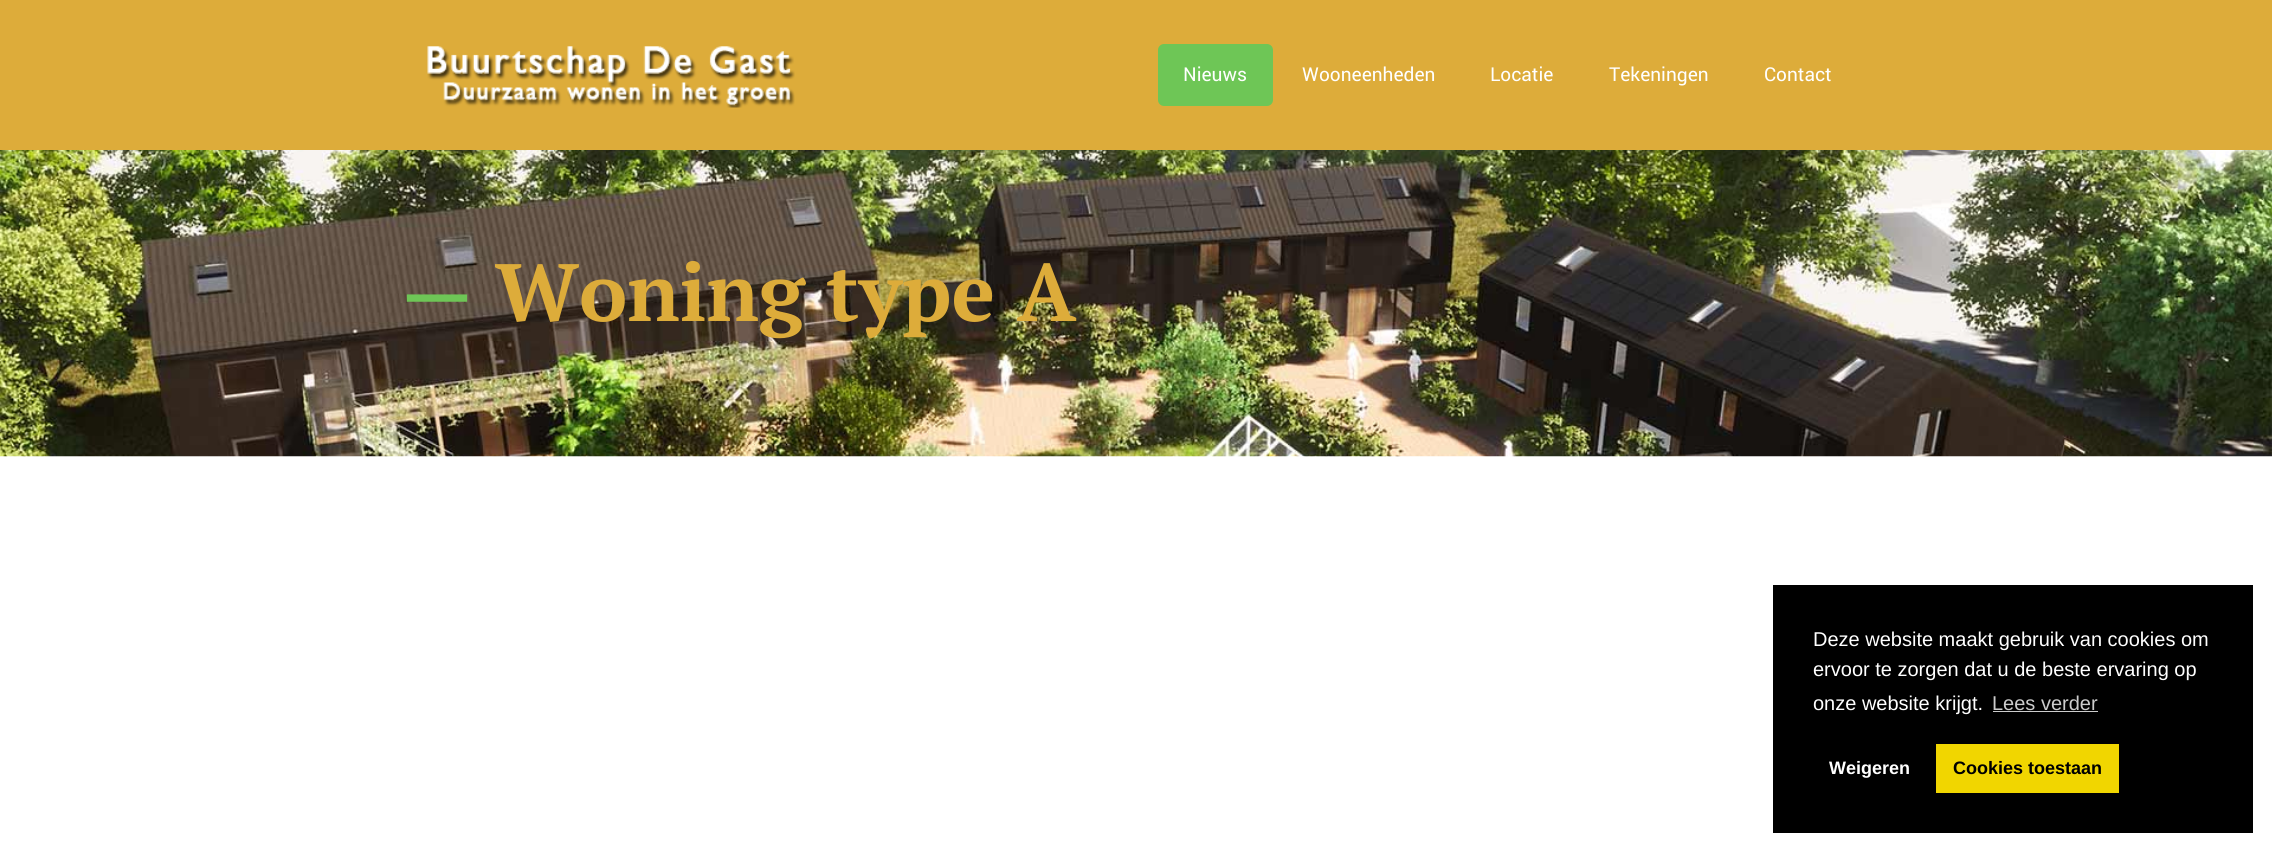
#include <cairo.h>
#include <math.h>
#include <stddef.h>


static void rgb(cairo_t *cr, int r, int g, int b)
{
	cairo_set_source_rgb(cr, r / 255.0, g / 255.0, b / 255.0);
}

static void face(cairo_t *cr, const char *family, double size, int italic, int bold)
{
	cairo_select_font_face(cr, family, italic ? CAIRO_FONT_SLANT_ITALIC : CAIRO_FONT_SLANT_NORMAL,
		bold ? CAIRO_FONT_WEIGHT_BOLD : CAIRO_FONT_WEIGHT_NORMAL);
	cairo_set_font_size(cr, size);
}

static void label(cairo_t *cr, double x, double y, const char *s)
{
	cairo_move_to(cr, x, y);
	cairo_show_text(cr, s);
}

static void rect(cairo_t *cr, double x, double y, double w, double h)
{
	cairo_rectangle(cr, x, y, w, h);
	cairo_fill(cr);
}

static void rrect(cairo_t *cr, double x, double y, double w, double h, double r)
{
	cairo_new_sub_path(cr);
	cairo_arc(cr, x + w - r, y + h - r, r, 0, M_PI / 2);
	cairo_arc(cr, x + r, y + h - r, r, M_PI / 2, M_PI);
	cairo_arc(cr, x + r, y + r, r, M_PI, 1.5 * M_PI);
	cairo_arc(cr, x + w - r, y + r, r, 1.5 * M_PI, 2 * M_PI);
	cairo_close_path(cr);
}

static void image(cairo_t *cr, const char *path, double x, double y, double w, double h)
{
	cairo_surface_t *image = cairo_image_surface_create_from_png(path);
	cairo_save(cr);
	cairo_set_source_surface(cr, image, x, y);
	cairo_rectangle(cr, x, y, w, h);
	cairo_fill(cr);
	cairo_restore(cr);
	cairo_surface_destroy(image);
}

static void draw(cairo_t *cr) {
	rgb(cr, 255, 255, 255);
	cairo_paint(cr);
	image(cr, "image0.png", 0, 150, 2272, 307);
	rgb(cr, 221, 172, 58);
	rect(cr, 0, 0, 2272, 150);
	image(cr, "image1.png", 427, 46, 368, 62);
	rgb(cr, 110, 198, 86);
	rrect(cr, 1158, 44, 115, 62, 6);
	cairo_fill(cr);
	face(cr, "Yantramanav", 21.25, 0, 0);
	rgb(cr, 255, 255, 255);
	label(cr, 1183, 81, "Nieuws");
	label(cr, 1302, 81, "Wooneenheden");
	label(cr, 1490, 81, "Locatie");
	label(cr, 1609, 81, "Tekeningen");
	label(cr, 1764, 81, "Contact");
	face(cr, "PT Serif", 81.25, 0, 1);
	rgb(cr, 110, 198, 86);
	label(cr, 401, 321, "—");
	rgb(cr, 221, 172, 58);
	label(cr, 495, 321, "Woning type A");
	rgb(cr, 0, 0, 0);
	rect(cr, 1773, 585, 480, 248);
	face(cr, "Liberation Sans", 20, 0, 0);
	rgb(cr, 255, 255, 255);
	label(cr, 1813, 646, "Deze website maakt gebruik van cookies om");
	label(cr, 1813, 676, "ervoor te zorgen dat u de beste ervaring op");
	label(cr, 1813, 710, "onze website krijgt.");
	rgb(cr, 204, 204, 204);
	label(cr, 1992, 710, "Lees verder");
	rect(cr, 1993, 711, 105, 1);
	face(cr, "Liberation Sans", 18, 0, 1);
	rgb(cr, 255, 255, 255);
	label(cr, 1829, 774, "Weigeren");
	rgb(cr, 241, 214, 0);
	rect(cr, 1936, 744, 183, 49);
	rgb(cr, 0, 0, 0);
	label(cr, 1953, 774, "Cookies toestaan");
}

int main(void) {
	cairo_surface_t *surface = cairo_image_surface_create(CAIRO_FORMAT_RGB24, 2272, 852);
	cairo_t *cr = cairo_create(surface);
	cairo_font_options_t *options = cairo_font_options_create();
	cairo_font_options_set_hint_metrics(options, CAIRO_HINT_METRICS_OFF);
	cairo_font_options_set_hint_style(options, CAIRO_HINT_STYLE_NONE);
	cairo_set_font_options(cr, options);
	cairo_set_miter_limit(cr, 4);
	draw(cr);
	cairo_surface_write_to_png(surface, "render.png");
	cairo_font_options_destroy(options);
	cairo_destroy(cr);
	cairo_surface_destroy(surface);
	return 0;
}
